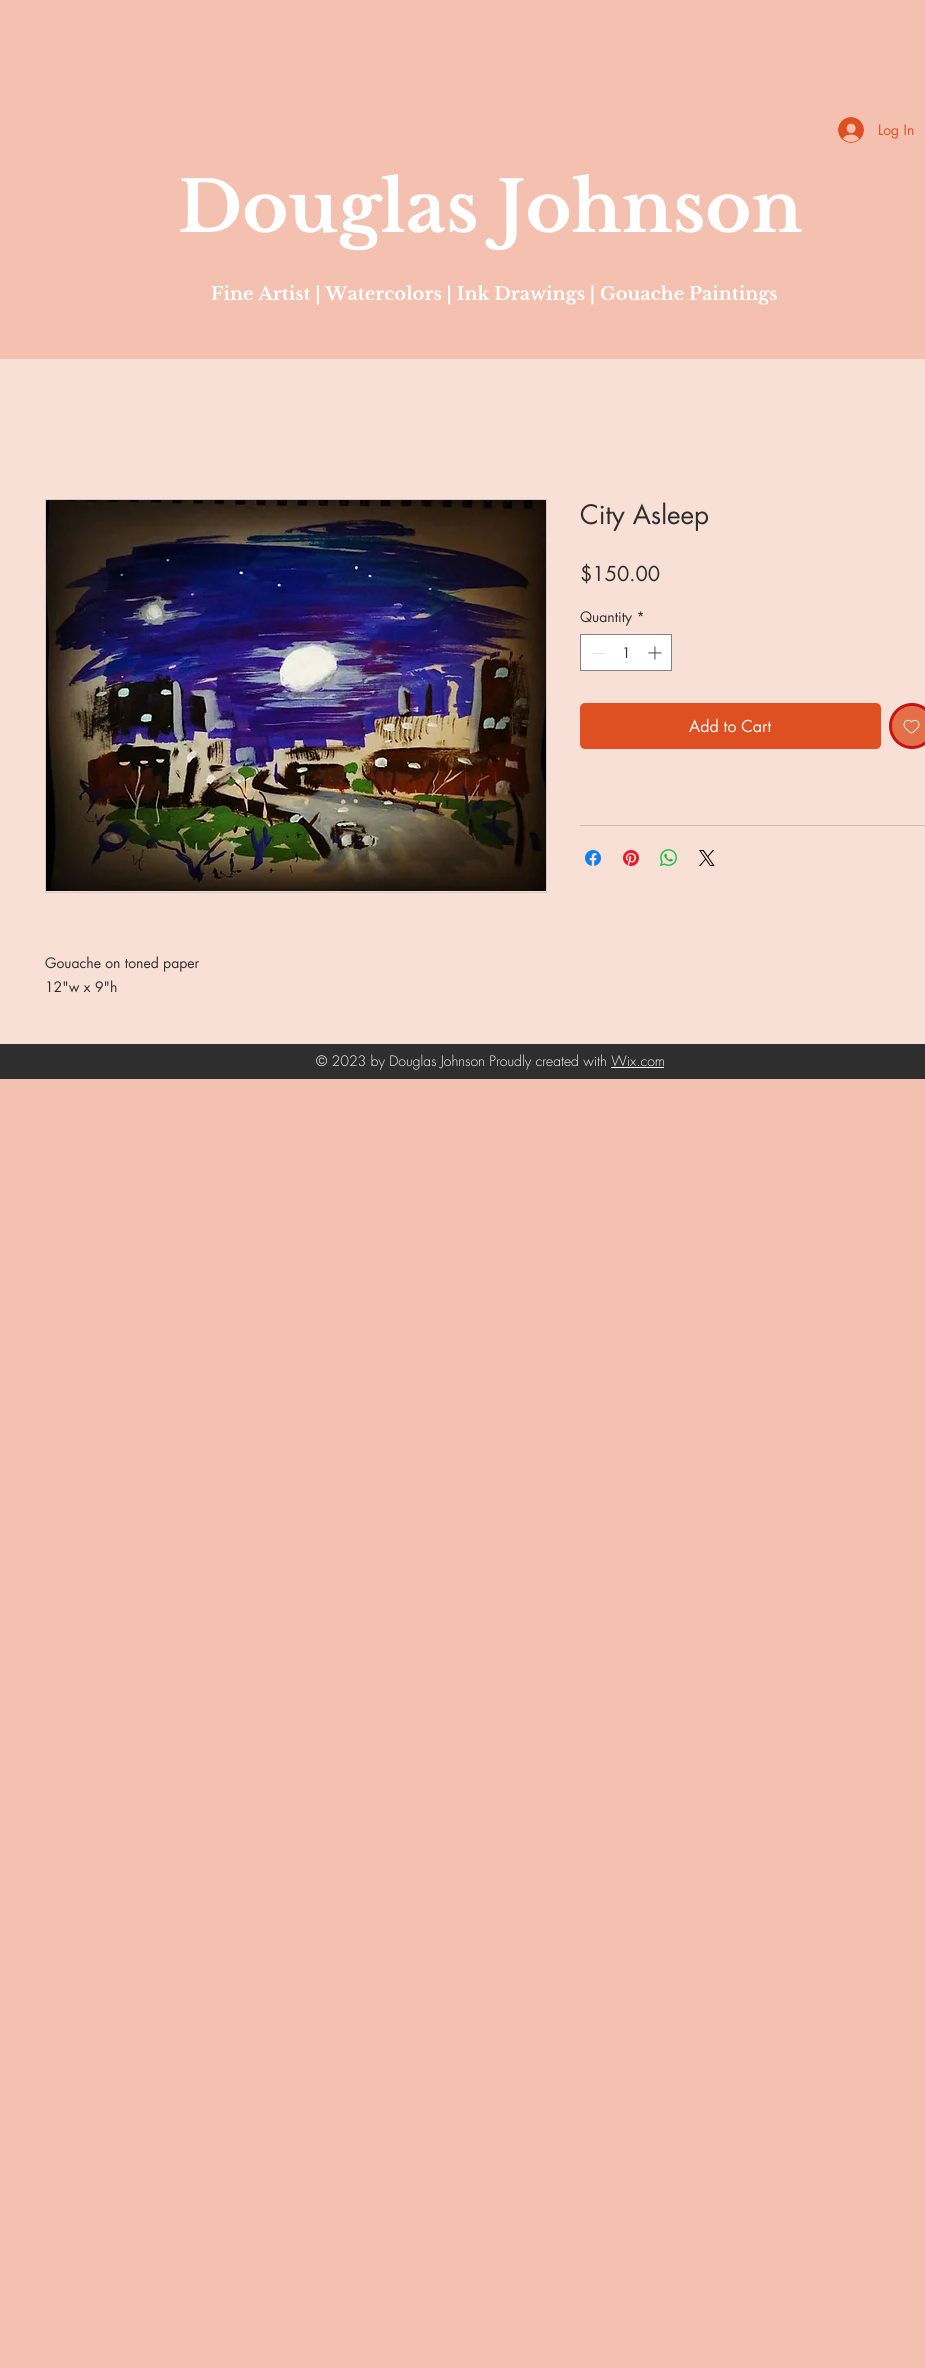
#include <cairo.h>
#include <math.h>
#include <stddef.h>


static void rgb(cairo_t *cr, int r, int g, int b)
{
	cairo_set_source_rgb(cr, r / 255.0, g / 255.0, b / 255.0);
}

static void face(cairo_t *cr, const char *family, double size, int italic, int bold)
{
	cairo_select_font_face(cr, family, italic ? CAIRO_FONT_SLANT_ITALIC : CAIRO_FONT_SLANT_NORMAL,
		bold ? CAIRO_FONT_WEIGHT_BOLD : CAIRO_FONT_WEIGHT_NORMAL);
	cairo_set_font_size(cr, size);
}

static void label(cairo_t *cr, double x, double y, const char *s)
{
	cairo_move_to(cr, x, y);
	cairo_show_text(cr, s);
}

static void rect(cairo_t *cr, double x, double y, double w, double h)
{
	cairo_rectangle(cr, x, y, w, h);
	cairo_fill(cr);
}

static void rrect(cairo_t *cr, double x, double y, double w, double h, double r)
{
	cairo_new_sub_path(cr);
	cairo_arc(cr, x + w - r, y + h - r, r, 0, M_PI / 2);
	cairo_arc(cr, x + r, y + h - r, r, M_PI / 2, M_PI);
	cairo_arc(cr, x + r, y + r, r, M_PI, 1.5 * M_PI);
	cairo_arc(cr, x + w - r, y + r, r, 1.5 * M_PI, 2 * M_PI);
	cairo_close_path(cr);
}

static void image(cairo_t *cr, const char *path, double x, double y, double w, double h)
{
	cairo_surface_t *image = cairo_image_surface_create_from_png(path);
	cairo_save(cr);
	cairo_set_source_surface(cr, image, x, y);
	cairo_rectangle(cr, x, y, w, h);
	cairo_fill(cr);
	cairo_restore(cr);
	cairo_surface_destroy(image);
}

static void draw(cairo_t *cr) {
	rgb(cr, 244, 192, 175);
	cairo_paint(cr);
	image(cr, "image0.png", 838, 117, 26, 26);
	face(cr, "futura", 14, 0, 0);
	rgb(cr, 222, 80, 33);
	label(cr, 878, 135, "Log In");
	face(cr, "Libre Baskerville", 70, 0, 1);
	rgb(cr, 255, 255, 255);
	label(cr, 178, 232, "Douglas Johnson");
	face(cr, "Libre Baskerville", 18, 0, 1);
	label(cr, 211, 300, "Fine Artist | Watercolors | Ink Drawings | Gouache Paintings");
	rgb(cr, 248, 224, 215);
	rect(cr, 0, 359, 925, 685);
	face(cr, "futura", 26, 0, 0);
	rgb(cr, 47, 46, 46);
	label(cr, 580, 524, "City Asleep");
	face(cr, "futura", 20, 0, 0);
	label(cr, 580, 581, "$150.00");
	face(cr, "futura", 14, 0, 0);
	label(cr, 580, 622, "Quantity *");
	rgb(cr, 255, 255, 255);
	cairo_rectangle(cr, 580.5, 634.5, 91, 36);
	cairo_fill_preserve(cr);
	rgb(cr, 130, 130, 130);
	cairo_set_line_width(cr, 1);
	cairo_stroke(cr);
	rgb(cr, 227, 227, 227);
	rect(cr, 592, 653, 13, 1);
	rgb(cr, 47, 46, 46);
	label(cr, 622, 658, "1");
	image(cr, "image1.png", 648, 646, 14, 14);
	rgb(cr, 222, 80, 33);
	rrect(cr, 580, 703, 301, 46, 5);
	cairo_fill(cr);
	face(cr, "futura", 16, 0, 0);
	rgb(cr, 255, 255, 255);
	label(cr, 689, 732, "Add to Cart");
	rgb(cr, 228, 112, 73);
	cairo_new_path(cr);
	cairo_arc(cr, 912, 726, 21.5, 0, 2 * M_PI);
	cairo_fill_preserve(cr);
	rgb(cr, 199, 18, 18);
	cairo_set_line_width(cr, 3);
	cairo_stroke(cr);
	image(cr, "image2.png", 903, 719, 17, 15);
	rgb(cr, 208, 188, 181);
	rect(cr, 580, 825, 345, 1);
	image(cr, "image3.png", 585, 850, 16, 16);
	image(cr, "image4.png", 623, 850, 16, 16);
	image(cr, "image5.png", 660, 849, 17, 17);
	image(cr, "image6.png", 699, 850, 16, 16);
	cairo_rectangle(cr, 45.5, 499.5, 501, 393);
	rgb(cr, 204, 204, 204);
	cairo_set_line_width(cr, 1);
	cairo_stroke(cr);
	image(cr, "image7.png", 46, 500, 500, 391);
	face(cr, "futura", 14, 0, 0);
	rgb(cr, 47, 46, 46);
	label(cr, 45, 968, "Gouache on toned paper");
	label(cr, 45, 992, "12\"w x 9\"h");
	rect(cr, 0, 1044, 925, 35);
	face(cr, "futura Light", 14, 0, 0);
	rgb(cr, 255, 255, 255);
	label(cr, 316, 1066, "© 2023 by Douglas Johnson Proudly created with Wix.com");
	rect(cr, 611, 1067, 53, 1);
}

int main(void) {
	cairo_surface_t *surface = cairo_image_surface_create(CAIRO_FORMAT_RGB24, 925, 2368);
	cairo_t *cr = cairo_create(surface);
	cairo_font_options_t *options = cairo_font_options_create();
	cairo_font_options_set_hint_metrics(options, CAIRO_HINT_METRICS_OFF);
	cairo_font_options_set_hint_style(options, CAIRO_HINT_STYLE_NONE);
	cairo_set_font_options(cr, options);
	cairo_set_miter_limit(cr, 4);
	draw(cr);
	cairo_surface_write_to_png(surface, "render.png");
	cairo_font_options_destroy(options);
	cairo_destroy(cr);
	cairo_surface_destroy(surface);
	return 0;
}
